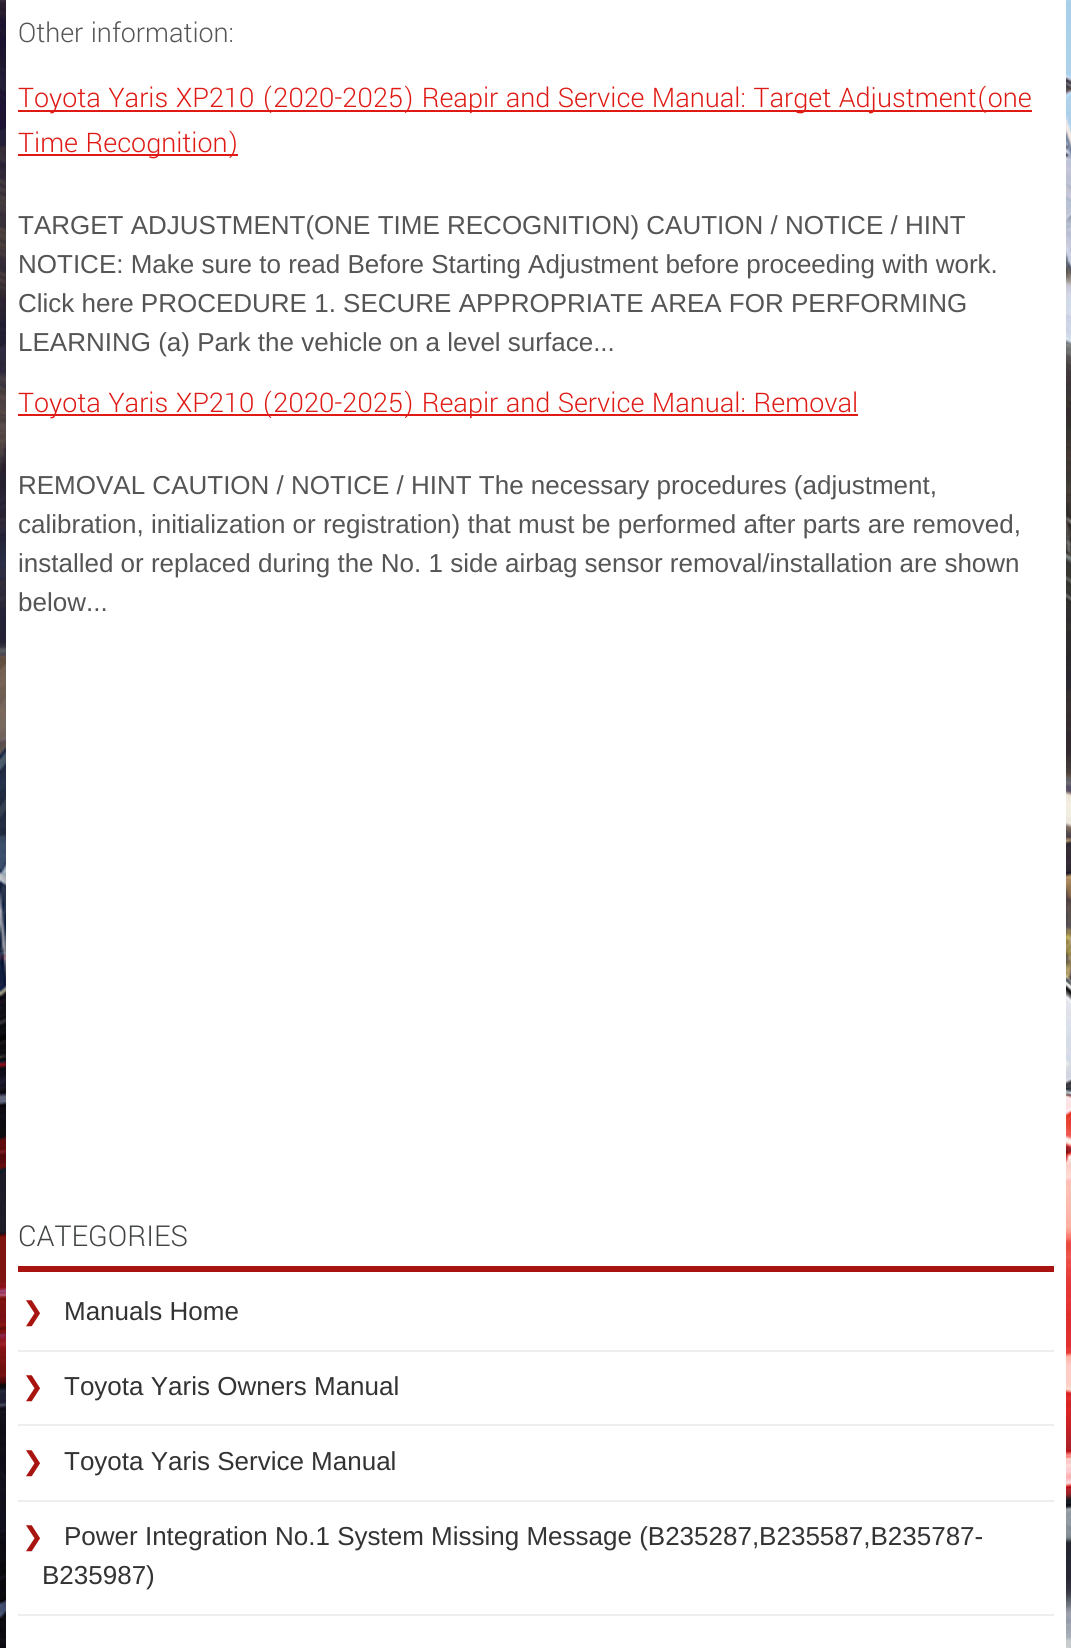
#include <cairo.h>
#include <math.h>
#include <stddef.h>


static void rgb(cairo_t *cr, int r, int g, int b)
{
	cairo_set_source_rgb(cr, r / 255.0, g / 255.0, b / 255.0);
}

static void face(cairo_t *cr, const char *family, double size, int italic, int bold)
{
	cairo_select_font_face(cr, family, italic ? CAIRO_FONT_SLANT_ITALIC : CAIRO_FONT_SLANT_NORMAL,
		bold ? CAIRO_FONT_WEIGHT_BOLD : CAIRO_FONT_WEIGHT_NORMAL);
	cairo_set_font_size(cr, size);
}

static void label(cairo_t *cr, double x, double y, const char *s)
{
	cairo_move_to(cr, x, y);
	cairo_show_text(cr, s);
}

static void rect(cairo_t *cr, double x, double y, double w, double h)
{
	cairo_rectangle(cr, x, y, w, h);
	cairo_fill(cr);
}

static void image(cairo_t *cr, const char *path, double x, double y, double w, double h)
{
	cairo_surface_t *image = cairo_image_surface_create_from_png(path);
	cairo_save(cr);
	cairo_set_source_surface(cr, image, x, y);
	cairo_rectangle(cr, x, y, w, h);
	cairo_fill(cr);
	cairo_restore(cr);
	cairo_surface_destroy(image);
}

static void draw(cairo_t *cr) {
	rgb(cr, 255, 255, 255);
	cairo_paint(cr);
	image(cr, "image0.png", 0, 0, 1071, 1648);
	rgb(cr, 255, 255, 255);
	rect(cr, 6, 0, 1060, 1648);
	face(cr, "Yantramanav Light", 30, 0, 0);
	rgb(cr, 85, 85, 85);
	label(cr, 18, 42, "Other information:");
	rgb(cr, 223, 26, 20);
	rect(cr, 18, 110, 1014, 2);
	label(cr, 18, 107, "Toyota Yaris XP210 (2020-2025) Reapir and Service Manual: Target Adjustment(one");
	rect(cr, 18, 154, 220, 2);
	label(cr, 18, 152, "Time Recognition)");
	face(cr, "Liberation Sans", 26, 0, 0);
	rgb(cr, 85, 85, 85);
	label(cr, 18, 234, "TARGET ADJUSTMENT(ONE TIME RECOGNITION) CAUTION / NOTICE / HINT");
	label(cr, 18, 273, "NOTICE: Make sure to read Before Starting Adjustment before proceeding with work.");
	label(cr, 18, 312, "Click here PROCEDURE 1. SECURE APPROPRIATE AREA FOR PERFORMING");
	label(cr, 18, 351, "LEARNING (a) Park the vehicle on a level surface...");
	rgb(cr, 223, 26, 20);
	rect(cr, 18, 414, 840, 2);
	face(cr, "Yantramanav Light", 30, 0, 0);
	label(cr, 18, 412, "Toyota Yaris XP210 (2020-2025) Reapir and Service Manual: Removal");
	face(cr, "Liberation Sans", 26, 0, 0);
	rgb(cr, 85, 85, 85);
	label(cr, 18, 494, "REMOVAL CAUTION / NOTICE / HINT The necessary procedures (adjustment,");
	label(cr, 18, 533, "calibration, initialization or registration) that must be performed after parts are removed,");
	label(cr, 18, 572, "installed or replaced during the No. 1 side airbag sensor removal/installation are shown");
	label(cr, 18, 611, "below...");
	rgb(cr, 168, 20, 15);
	rect(cr, 18, 1266, 1036, 6);
	face(cr, "Yantramanav Light", 32, 0, 0);
	rgb(cr, 65, 68, 69);
	label(cr, 18, 1246, "CATEGORIES");
	rgb(cr, 238, 238, 238);
	rect(cr, 18, 1350, 1036, 2);
	face(cr, "DejaVu Sans", 26, 0, 0);
	rgb(cr, 168, 20, 15);
	label(cr, 22, 1320, "❯");
	face(cr, "Liberation Sans", 26, 0, 0);
	rgb(cr, 51, 51, 51);
	label(cr, 64, 1320, "Manuals Home");
	rgb(cr, 238, 238, 238);
	rect(cr, 18, 1424, 1036, 2);
	face(cr, "DejaVu Sans", 26, 0, 0);
	rgb(cr, 168, 20, 15);
	label(cr, 22, 1395, "❯");
	face(cr, "Liberation Sans", 26, 0, 0);
	rgb(cr, 51, 51, 51);
	label(cr, 64, 1395, "Toyota Yaris Owners Manual");
	rgb(cr, 238, 238, 238);
	rect(cr, 18, 1500, 1036, 2);
	face(cr, "DejaVu Sans", 26, 0, 0);
	rgb(cr, 168, 20, 15);
	label(cr, 22, 1470, "❯");
	face(cr, "Liberation Sans", 26, 0, 0);
	rgb(cr, 51, 51, 51);
	label(cr, 64, 1470, "Toyota Yaris Service Manual");
	rgb(cr, 238, 238, 238);
	rect(cr, 18, 1614, 1036, 2);
	face(cr, "DejaVu Sans", 26, 0, 0);
	rgb(cr, 168, 20, 15);
	label(cr, 22, 1545, "❯");
	face(cr, "Liberation Sans", 26, 0, 0);
	rgb(cr, 51, 51, 51);
	label(cr, 64, 1545, "Power Integration No.1 System Missing Message (B235287,B235587,B235787-");
	label(cr, 42, 1584, "B235987)");
}

int main(void) {
	cairo_surface_t *surface = cairo_image_surface_create(CAIRO_FORMAT_RGB24, 1071, 1648);
	cairo_t *cr = cairo_create(surface);
	cairo_font_options_t *options = cairo_font_options_create();
	cairo_font_options_set_hint_metrics(options, CAIRO_HINT_METRICS_OFF);
	cairo_font_options_set_hint_style(options, CAIRO_HINT_STYLE_NONE);
	cairo_set_font_options(cr, options);
	cairo_set_miter_limit(cr, 4);
	draw(cr);
	cairo_surface_write_to_png(surface, "render.png");
	cairo_font_options_destroy(options);
	cairo_destroy(cr);
	cairo_surface_destroy(surface);
	return 0;
}
